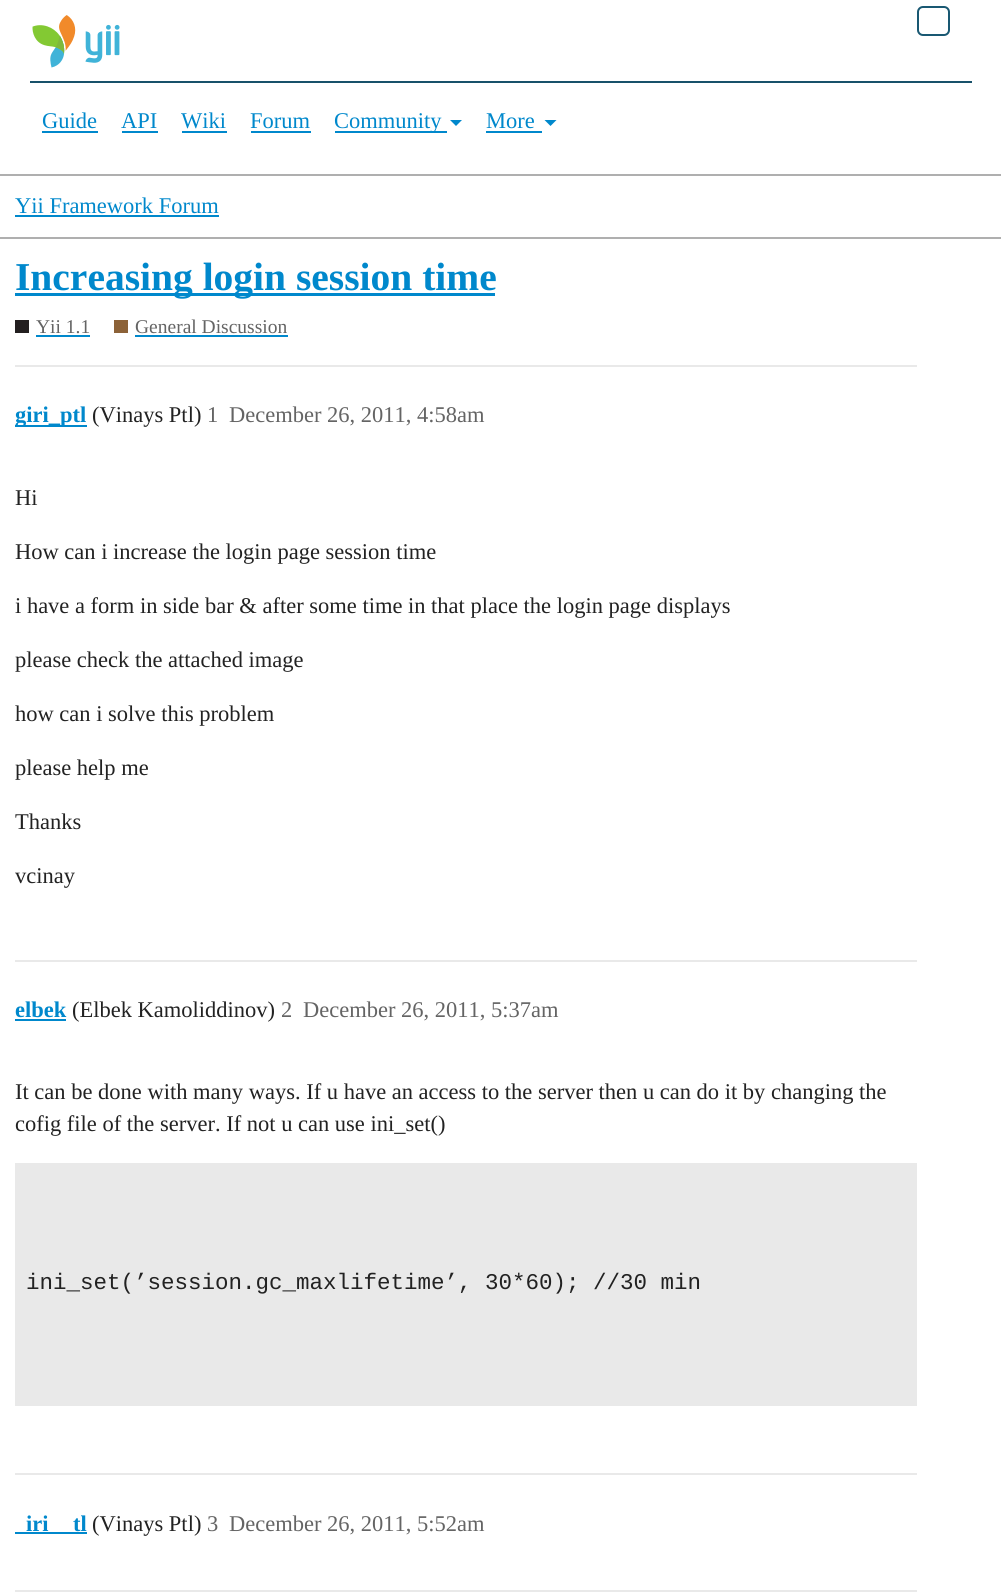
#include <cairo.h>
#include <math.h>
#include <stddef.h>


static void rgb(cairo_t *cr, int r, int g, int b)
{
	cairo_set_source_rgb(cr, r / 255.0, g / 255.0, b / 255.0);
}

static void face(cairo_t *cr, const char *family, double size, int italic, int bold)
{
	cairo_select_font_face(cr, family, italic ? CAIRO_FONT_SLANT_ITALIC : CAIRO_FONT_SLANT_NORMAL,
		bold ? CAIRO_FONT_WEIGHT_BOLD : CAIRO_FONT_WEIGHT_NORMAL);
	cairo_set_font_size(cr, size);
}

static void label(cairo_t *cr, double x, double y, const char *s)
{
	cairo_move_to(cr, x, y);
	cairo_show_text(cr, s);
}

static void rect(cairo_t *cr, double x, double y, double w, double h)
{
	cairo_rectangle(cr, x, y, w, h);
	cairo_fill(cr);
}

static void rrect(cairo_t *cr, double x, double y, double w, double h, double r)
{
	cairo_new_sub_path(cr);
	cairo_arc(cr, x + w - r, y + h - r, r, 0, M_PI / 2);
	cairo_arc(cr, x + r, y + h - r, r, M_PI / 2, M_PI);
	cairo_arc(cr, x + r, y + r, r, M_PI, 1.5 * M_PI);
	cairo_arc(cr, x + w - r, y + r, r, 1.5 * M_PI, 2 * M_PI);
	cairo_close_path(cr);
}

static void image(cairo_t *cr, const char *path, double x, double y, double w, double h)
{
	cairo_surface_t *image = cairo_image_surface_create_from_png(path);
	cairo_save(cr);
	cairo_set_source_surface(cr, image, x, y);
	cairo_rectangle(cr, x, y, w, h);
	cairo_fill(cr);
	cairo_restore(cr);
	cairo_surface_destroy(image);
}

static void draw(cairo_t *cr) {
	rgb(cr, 255, 255, 255);
	cairo_paint(cr);
	rgb(cr, 175, 175, 175);
	rect(cr, 0, 174, 1001, 2);
	image(cr, "image0.png", 32, 15, 88, 53);
	rrect(cr, 918, 7, 31, 28, 5);
	rgb(cr, 25, 88, 114);
	cairo_stroke(cr);
	rgb(cr, 24, 81, 106);
	rect(cr, 30, 81, 942, 2);
	face(cr, "Liberation Serif", 22.5, 0, 0);
	rgb(cr, 0, 136, 204);
	label(cr, 42, 128, "Guide");
	rect(cr, 42, 131, 56, 2);
	label(cr, 121, 128, "API");
	rect(cr, 122, 131, 36, 2);
	label(cr, 181, 128, "Wiki");
	rect(cr, 182, 131, 45, 2);
	label(cr, 250, 128, "Forum");
	rect(cr, 251, 131, 60, 2);
	rect(cr, 335, 131, 112, 2);
	label(cr, 334, 128, "Community");
	cairo_new_path(cr);
	cairo_move_to(cr, 450, 120);
	cairo_line_to(cr, 462, 120);
	cairo_line_to(cr, 456, 126);
	cairo_close_path(cr);
	cairo_fill(cr);
	label(cr, 486, 128, "More");
	rect(cr, 486, 131, 56, 2);
	cairo_new_path(cr);
	cairo_move_to(cr, 544.5, 120);
	cairo_line_to(cr, 556.5, 120);
	cairo_line_to(cr, 550.5, 126);
	cairo_close_path(cr);
	cairo_fill(cr);
	rgb(cr, 175, 175, 175);
	rect(cr, 0, 237, 1001, 2);
	rgb(cr, 0, 136, 204);
	label(cr, 15, 213, "Yii Framework Forum");
	rect(cr, 15, 215, 204, 2);
	rect(cr, 15, 293, 480, 3);
	face(cr, "Liberation Serif", 39.5, 0, 1);
	label(cr, 15, 290, "Increasing login session time");
	rgb(cr, 35, 31, 32);
	rect(cr, 15, 320, 14, 13);
	face(cr, "Liberation Serif", 19.5, 0, 0);
	rgb(cr, 100, 100, 100);
	label(cr, 36, 333, "Yii 1.1");
	rgb(cr, 0, 136, 204);
	rect(cr, 36, 335, 54, 2);
	rgb(cr, 140, 98, 56);
	rect(cr, 114, 320, 14, 13);
	rgb(cr, 100, 100, 100);
	label(cr, 135, 333, "General Discussion");
	rgb(cr, 0, 136, 204);
	rect(cr, 135, 335, 153, 2);
	rgb(cr, 233, 233, 233);
	rect(cr, 15, 365, 902, 2);
	rgb(cr, 0, 136, 204);
	rect(cr, 15, 425, 72, 2);
	face(cr, "Liberation Serif", 22.5, 0, 1);
	label(cr, 15, 422, "giri_ptl");
	face(cr, "Liberation Serif", 22.5, 0, 0);
	rgb(cr, 34, 34, 34);
	label(cr, 92, 422, "(Vinays Ptl)");
	rgb(cr, 100, 100, 100);
	label(cr, 207, 422, "1");
	label(cr, 229, 422, "December 26, 2011, 4:58am");
	rgb(cr, 34, 34, 34);
	label(cr, 15, 505, "Hi");
	label(cr, 15, 559, "How can i increase the login page session time");
	label(cr, 15, 613, "i have a form in side bar & after some time in that place the login page displays");
	label(cr, 15, 667, "please check the attached image");
	label(cr, 15, 721, "how can i solve this problem");
	label(cr, 15, 775, "please help me");
	label(cr, 15, 829, "Thanks");
	label(cr, 15, 883, "vcinay");
	rgb(cr, 233, 233, 233);
	rect(cr, 15, 960, 902, 2);
	face(cr, "Liberation Serif", 22.5, 0, 1);
	rgb(cr, 0, 136, 204);
	label(cr, 15, 1017, "elbek");
	rect(cr, 15, 1019, 51, 2);
	face(cr, "Liberation Serif", 22.5, 0, 0);
	rgb(cr, 34, 34, 34);
	label(cr, 72, 1017, "(Elbek Kamoliddinov)");
	rgb(cr, 100, 100, 100);
	label(cr, 281, 1017, "2");
	label(cr, 303, 1017, "December 26, 2011, 5:37am");
	rgb(cr, 34, 34, 34);
	label(cr, 15, 1099, "It can be done with many ways. If u have an access to the server then u can do it by changing the");
	label(cr, 15, 1131, "cofig file of the server. If not u can use ini_set()");
	rgb(cr, 233, 233, 233);
	rect(cr, 15, 1163, 902, 243);
	face(cr, "Liberation Mono", 22.5, 0, 0);
	rgb(cr, 34, 34, 34);
	label(cr, 26, 1289, "ini_set(’session.gc_maxlifetime’, 30*60); //30 min");
	rgb(cr, 233, 233, 233);
	rect(cr, 15, 1473, 902, 2);
	face(cr, "Liberation Serif", 22.5, 0, 1);
	rgb(cr, 0, 136, 204);
	label(cr, 26, 1531, "iri");
	label(cr, 73, 1531, "tl");
	rect(cr, 15, 1532, 72, 2);
	face(cr, "Liberation Serif", 22.5, 0, 0);
	rgb(cr, 34, 34, 34);
	label(cr, 92, 1531, "(Vinays Ptl)");
	rgb(cr, 100, 100, 100);
	label(cr, 207, 1531, "3");
	label(cr, 229, 1531, "December 26, 2011, 5:52am");
	rgb(cr, 233, 233, 233);
	rect(cr, 15, 1590, 902, 2);
}

int main(void) {
	cairo_surface_t *surface = cairo_image_surface_create(CAIRO_FORMAT_RGB24, 1001, 1592);
	cairo_t *cr = cairo_create(surface);
	cairo_font_options_t *options = cairo_font_options_create();
	cairo_font_options_set_hint_metrics(options, CAIRO_HINT_METRICS_OFF);
	cairo_font_options_set_hint_style(options, CAIRO_HINT_STYLE_NONE);
	cairo_set_font_options(cr, options);
	cairo_set_miter_limit(cr, 4);
	draw(cr);
	cairo_surface_write_to_png(surface, "render.png");
	cairo_font_options_destroy(options);
	cairo_destroy(cr);
	cairo_surface_destroy(surface);
	return 0;
}
